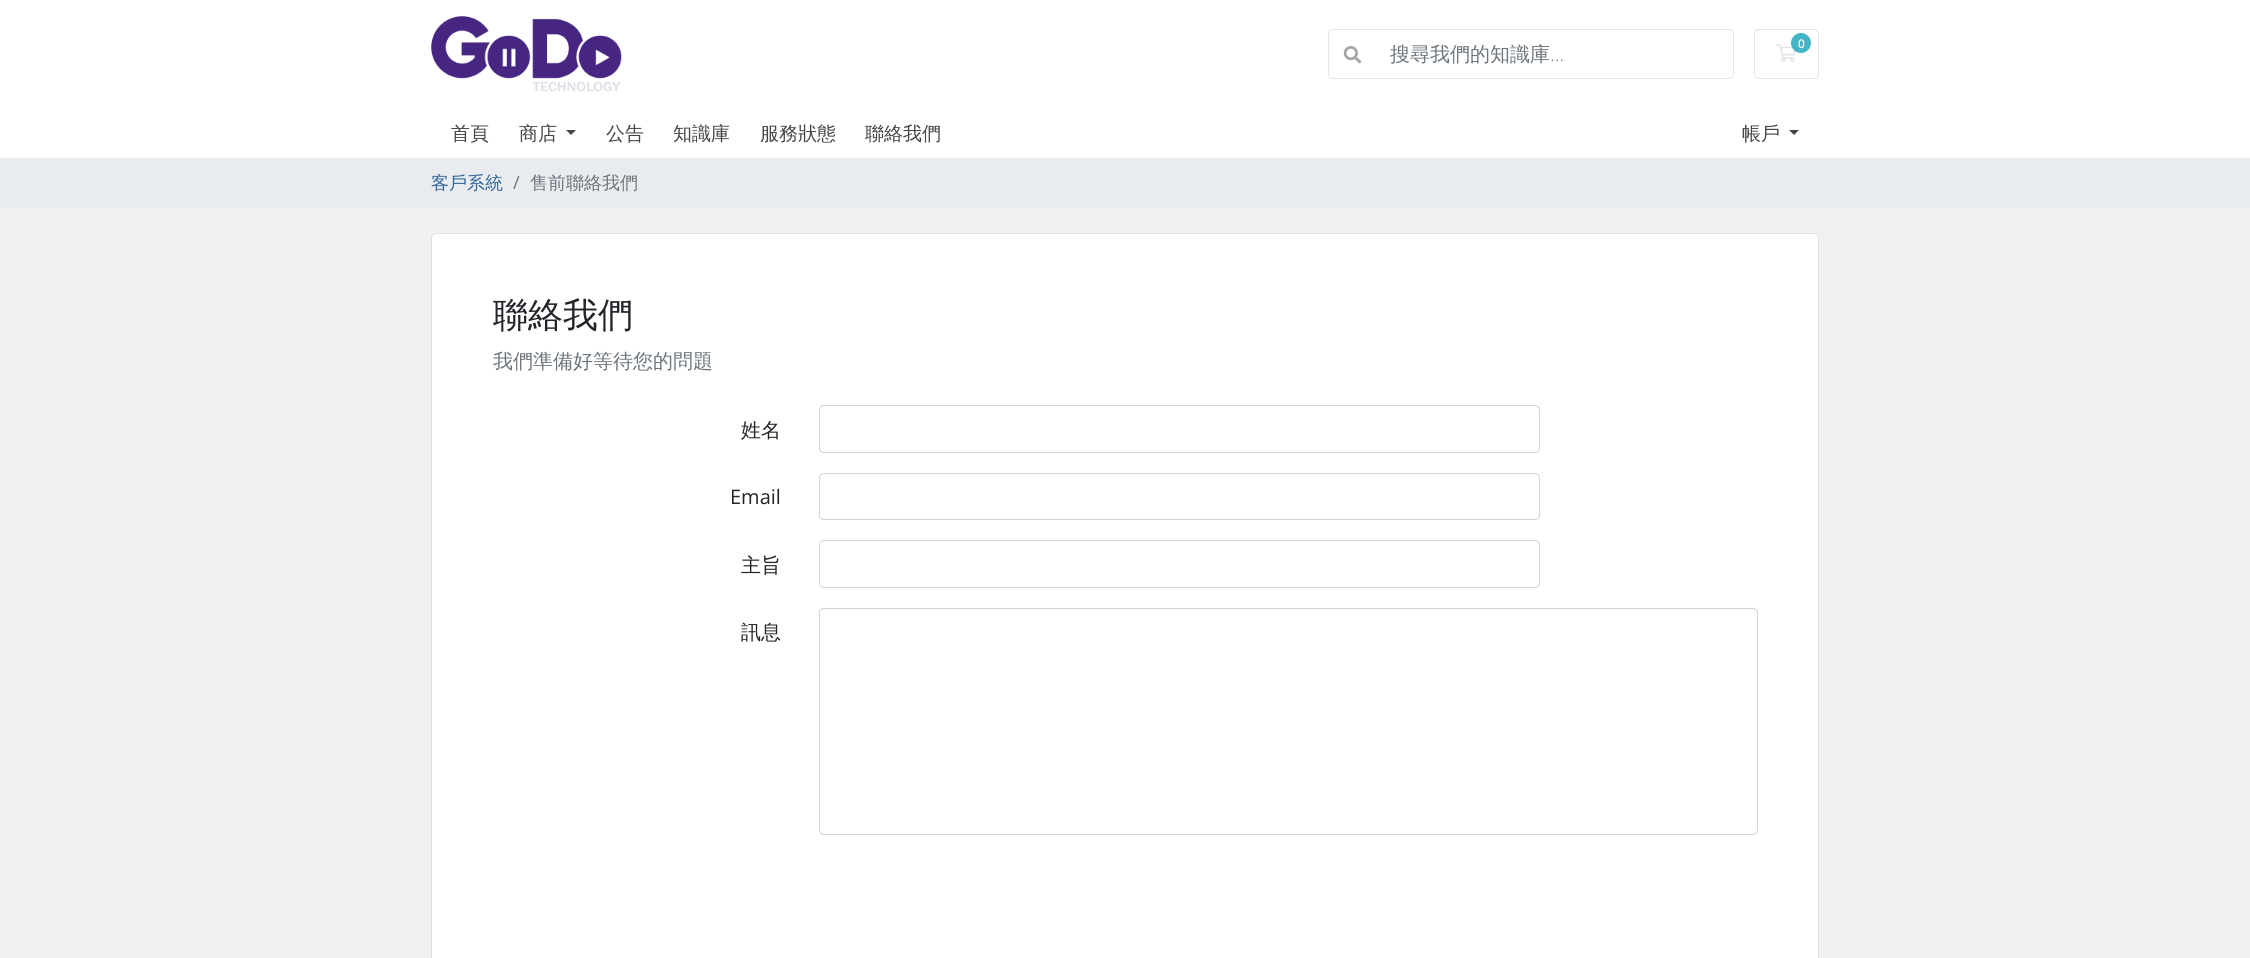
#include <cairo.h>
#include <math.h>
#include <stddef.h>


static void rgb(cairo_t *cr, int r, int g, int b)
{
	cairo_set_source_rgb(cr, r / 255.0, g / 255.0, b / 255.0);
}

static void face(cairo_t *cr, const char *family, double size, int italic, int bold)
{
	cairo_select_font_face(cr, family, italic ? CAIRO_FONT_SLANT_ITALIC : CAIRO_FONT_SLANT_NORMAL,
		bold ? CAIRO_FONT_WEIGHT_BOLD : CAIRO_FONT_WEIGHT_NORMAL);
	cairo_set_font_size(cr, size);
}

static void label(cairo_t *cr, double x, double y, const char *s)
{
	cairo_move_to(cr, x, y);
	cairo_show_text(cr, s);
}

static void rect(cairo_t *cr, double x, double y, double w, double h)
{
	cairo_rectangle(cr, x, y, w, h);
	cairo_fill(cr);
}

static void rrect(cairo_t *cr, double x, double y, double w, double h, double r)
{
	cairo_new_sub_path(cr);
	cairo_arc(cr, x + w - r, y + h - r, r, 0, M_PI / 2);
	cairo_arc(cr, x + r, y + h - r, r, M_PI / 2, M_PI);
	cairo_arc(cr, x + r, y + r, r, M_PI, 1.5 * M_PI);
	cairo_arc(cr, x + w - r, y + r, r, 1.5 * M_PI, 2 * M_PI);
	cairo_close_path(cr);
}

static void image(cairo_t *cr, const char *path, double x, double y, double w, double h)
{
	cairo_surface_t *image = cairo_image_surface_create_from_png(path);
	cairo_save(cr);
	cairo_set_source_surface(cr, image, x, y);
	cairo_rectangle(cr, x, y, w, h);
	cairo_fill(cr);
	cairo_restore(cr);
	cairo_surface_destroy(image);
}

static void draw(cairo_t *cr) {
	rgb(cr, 241, 241, 241);
	cairo_paint(cr);
	rgb(cr, 255, 255, 255);
	rect(cr, 0, 0, 2250, 158);
	image(cr, "image0.png", 431, 16, 191, 76);
	rrect(cr, 1328.5, 29.5, 405, 49, 4.5);
	rgb(cr, 229, 229, 229);
	cairo_set_line_width(cr, 1);
	cairo_stroke(cr);
	rgb(cr, 255, 255, 255);
	cairo_new_path(cr);
	cairo_move_to(cr, 1375, 30);
	cairo_line_to(cr, 1728, 30);
	cairo_curve_to(cr, 1731, 30, 1733, 32, 1733, 35);
	cairo_line_to(cr, 1733, 73);
	cairo_curve_to(cr, 1733, 76, 1731, 78, 1728, 78);
	cairo_line_to(cr, 1375, 78);
	cairo_close_path(cr);
	cairo_fill(cr);
	cairo_new_path(cr);
	cairo_move_to(cr, 1334, 30);
	cairo_line_to(cr, 1376, 30);
	cairo_line_to(cr, 1376, 78);
	cairo_line_to(cr, 1334, 78);
	cairo_curve_to(cr, 1331, 78, 1329, 76, 1329, 73);
	cairo_line_to(cr, 1329, 35);
	cairo_curve_to(cr, 1329, 32, 1331, 30, 1334, 30);
	cairo_close_path(cr);
	cairo_fill(cr);
	image(cr, "image1.png", 1343, 46, 19, 18);
	face(cr, "WenQuanYi Zen Hei Medium", 20, 0, 0);
	rgb(cr, 108, 117, 125);
	label(cr, 1390, 61, "搜尋我們的知識庫");
	face(cr, "Open Sans Light", 20, 0, 0);
	label(cr, 1550, 61, "...");
	rrect(cr, 1754.5, 29.5, 64, 49, 4.5);
	rgb(cr, 229, 229, 229);
	cairo_stroke(cr);
	image(cr, "image2.png", 1776, 44, 21, 19);
	cairo_set_source_rgba(cr, 0.09, 0.635, 0.722, 0.8);
	cairo_arc(cr, 1801, 43, 10, 0, 2 * M_PI);
	cairo_fill(cr);
	face(cr, "Open Sans SemiBold", 12, 0, 0);
	rgb(cr, 255, 255, 255);
	label(cr, 1798, 48, "0");
	face(cr, "WenQuanYi Zen Hei Medium", 19, 0, 0);
	rgb(cr, 68, 68, 68);
	label(cr, 451, 140, "首頁");
	label(cr, 519, 140, "商店");
	cairo_new_path(cr);
	cairo_move_to(cr, 566, 130);
	cairo_line_to(cr, 576, 130);
	cairo_line_to(cr, 571, 135);
	cairo_close_path(cr);
	cairo_fill(cr);
	label(cr, 606, 140, "公告");
	label(cr, 673, 140, "知識庫");
	label(cr, 760, 140, "服務狀態");
	label(cr, 865, 140, "聯絡我們");
	label(cr, 1742, 140, "帳戶");
	cairo_new_path(cr);
	cairo_move_to(cr, 1789, 130);
	cairo_line_to(cr, 1799, 130);
	cairo_line_to(cr, 1794, 135);
	cairo_close_path(cr);
	cairo_fill(cr);
	rgb(cr, 233, 236, 239);
	rect(cr, 0, 158, 2250, 50);
	face(cr, "WenQuanYi Zen Hei Medium", 18, 0, 0);
	rgb(cr, 51, 102, 153);
	label(cr, 431, 189, "客戶系統");
	face(cr, "Open Sans", 18, 0, 0);
	rgb(cr, 108, 117, 125);
	label(cr, 513, 189, "/");
	face(cr, "WenQuanYi Zen Hei Medium", 18, 0, 0);
	label(cr, 530, 189, "售前聯絡我們");
	rgb(cr, 255, 255, 255);
	rrect(cr, 431, 233, 1388, 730, 5);
	cairo_fill(cr);
	rrect(cr, 431.5, 233.5, 1387, 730, 4.5);
	cairo_set_source_rgba(cr, 0, 0, 0, 0.12);
	cairo_stroke(cr);
	face(cr, "WenQuanYi Zen Hei Medium", 35, 0, 0);
	rgb(cr, 33, 37, 41);
	label(cr, 493, 327, "聯絡我們");
	face(cr, "WenQuanYi Zen Hei Medium", 20, 0, 0);
	rgb(cr, 108, 117, 125);
	label(cr, 493, 368, "我們準備好等待您的問題");
	rgb(cr, 33, 37, 41);
	label(cr, 741, 437, "姓名");
	rrect(cr, 819.5, 405.5, 720, 47, 4.5);
	rgb(cr, 206, 212, 218);
	cairo_stroke(cr);
	face(cr, "Open Sans", 20, 0, 0);
	rgb(cr, 33, 37, 41);
	label(cr, 730, 504, "Email");
	rrect(cr, 819.5, 473.5, 720, 46, 4.5);
	rgb(cr, 206, 212, 218);
	cairo_stroke(cr);
	face(cr, "WenQuanYi Zen Hei Medium", 20, 0, 0);
	rgb(cr, 33, 37, 41);
	label(cr, 741, 572, "主旨");
	rrect(cr, 819.5, 540.5, 720, 47, 4.5);
	rgb(cr, 206, 212, 218);
	cairo_stroke(cr);
	rgb(cr, 33, 37, 41);
	label(cr, 741, 639, "訊息");
	rrect(cr, 819.5, 608.5, 938, 226, 4.5);
	rgb(cr, 206, 212, 218);
	cairo_stroke(cr);
}

int main(void) {
	cairo_surface_t *surface = cairo_image_surface_create(CAIRO_FORMAT_RGB24, 2250, 958);
	cairo_t *cr = cairo_create(surface);
	cairo_font_options_t *options = cairo_font_options_create();
	cairo_font_options_set_hint_metrics(options, CAIRO_HINT_METRICS_OFF);
	cairo_font_options_set_hint_style(options, CAIRO_HINT_STYLE_NONE);
	cairo_set_font_options(cr, options);
	cairo_set_miter_limit(cr, 4);
	draw(cr);
	cairo_surface_write_to_png(surface, "render.png");
	cairo_font_options_destroy(options);
	cairo_destroy(cr);
	cairo_surface_destroy(surface);
	return 0;
}
